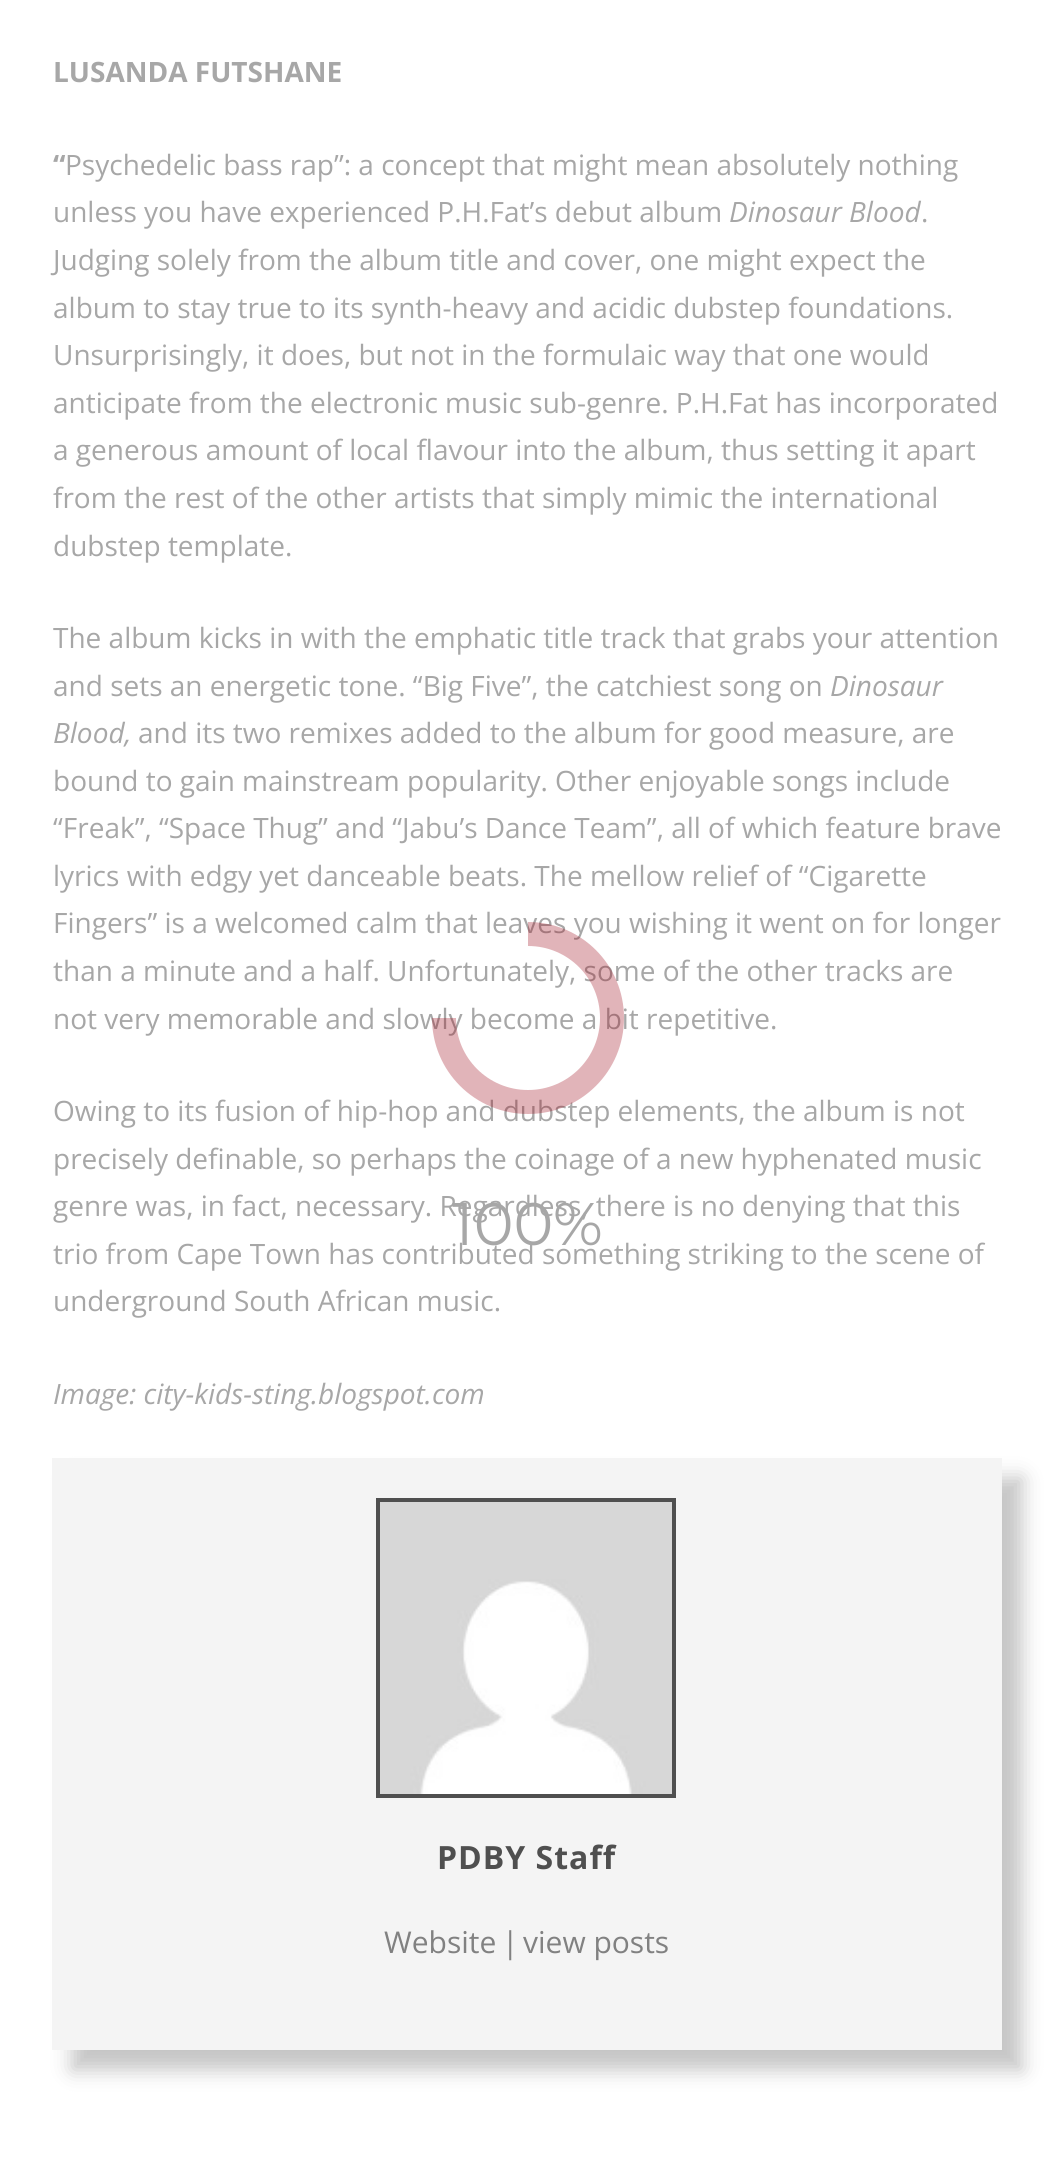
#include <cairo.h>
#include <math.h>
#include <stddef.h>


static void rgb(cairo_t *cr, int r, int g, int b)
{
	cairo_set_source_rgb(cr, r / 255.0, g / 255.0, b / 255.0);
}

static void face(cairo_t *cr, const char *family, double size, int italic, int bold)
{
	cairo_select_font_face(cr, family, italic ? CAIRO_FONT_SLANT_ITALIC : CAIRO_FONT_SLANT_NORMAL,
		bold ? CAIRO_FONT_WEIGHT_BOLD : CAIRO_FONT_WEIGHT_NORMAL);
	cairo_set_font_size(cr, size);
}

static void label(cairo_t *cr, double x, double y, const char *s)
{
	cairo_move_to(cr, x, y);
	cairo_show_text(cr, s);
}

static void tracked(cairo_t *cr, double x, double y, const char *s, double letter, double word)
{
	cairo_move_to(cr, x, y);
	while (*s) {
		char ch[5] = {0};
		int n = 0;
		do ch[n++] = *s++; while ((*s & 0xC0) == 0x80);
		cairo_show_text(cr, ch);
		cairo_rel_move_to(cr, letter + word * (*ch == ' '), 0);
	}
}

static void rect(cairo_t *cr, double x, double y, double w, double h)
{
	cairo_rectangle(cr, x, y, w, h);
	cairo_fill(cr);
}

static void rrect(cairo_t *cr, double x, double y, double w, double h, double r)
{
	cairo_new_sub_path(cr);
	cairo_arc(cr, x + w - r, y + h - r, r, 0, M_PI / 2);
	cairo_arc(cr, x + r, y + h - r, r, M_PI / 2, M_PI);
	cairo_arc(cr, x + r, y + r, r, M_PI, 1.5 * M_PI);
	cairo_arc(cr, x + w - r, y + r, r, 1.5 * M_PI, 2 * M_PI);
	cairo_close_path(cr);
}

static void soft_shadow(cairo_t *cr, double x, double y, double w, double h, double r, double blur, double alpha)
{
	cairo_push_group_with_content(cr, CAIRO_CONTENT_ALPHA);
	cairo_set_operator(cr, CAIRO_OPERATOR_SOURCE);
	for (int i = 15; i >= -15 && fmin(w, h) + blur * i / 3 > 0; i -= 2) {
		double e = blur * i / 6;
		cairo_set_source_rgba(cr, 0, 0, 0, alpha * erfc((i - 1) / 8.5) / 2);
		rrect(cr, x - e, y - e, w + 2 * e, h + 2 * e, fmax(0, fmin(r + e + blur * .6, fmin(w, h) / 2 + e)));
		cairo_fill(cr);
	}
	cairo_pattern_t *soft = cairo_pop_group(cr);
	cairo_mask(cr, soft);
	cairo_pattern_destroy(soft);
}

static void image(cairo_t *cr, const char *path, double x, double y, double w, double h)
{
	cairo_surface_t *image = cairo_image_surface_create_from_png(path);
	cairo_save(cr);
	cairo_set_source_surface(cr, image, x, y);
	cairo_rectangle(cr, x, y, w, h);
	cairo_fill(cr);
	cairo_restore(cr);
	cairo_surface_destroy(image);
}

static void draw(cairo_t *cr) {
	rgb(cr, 255, 255, 255);
	cairo_paint(cr);
	face(cr, "Open Sans", 28, 0, 1);
	rgb(cr, 167, 167, 167);
	label(cr, 53, 82, "LUSANDA FUTSHANE");
	label(cr, 53, 175, "“");
	face(cr, "Open Sans", 28, 0, 0);
	label(cr, 65, 175, "Psychedelic bass rap”: a concept that might mean absolutely nothing");
	label(cr, 53, 222, "unless you have experienced P.H.Fat’s debut album");
	face(cr, "Open Sans", 28, 1, 0);
	label(cr, 729, 222, "Dinosaur Blood");
	face(cr, "Open Sans", 28, 0, 0);
	label(cr, 921, 222, ".");
	label(cr, 53, 270, "Judging solely from the album title and cover, one might expect the");
	label(cr, 53, 318, "album to stay true to its synth-heavy and acidic dubstep foundations.");
	label(cr, 53, 365, "Unsurprisingly, it does, but not in the formulaic way that one would");
	label(cr, 53, 413, "anticipate from the electronic music sub-genre. P.H.Fat has incorporated");
	label(cr, 53, 460, "a generous amount of local flavour into the album, thus setting it apart");
	label(cr, 53, 508, "from the rest of the other artists that simply mimic the international");
	label(cr, 53, 556, "dubstep template.");
	label(cr, 53, 648, "The album kicks in with the emphatic title track that grabs your attention");
	label(cr, 53, 696, "and sets an energetic tone. “Big Five”, the catchiest song on");
	face(cr, "Open Sans", 28, 1, 0);
	label(cr, 830, 696, "Dinosaur");
	label(cr, 53, 743, "Blood,");
	face(cr, "Open Sans", 28, 0, 0);
	label(cr, 138, 743, "and its two remixes added to the album for good measure, are");
	label(cr, 53, 791, "bound to gain mainstream popularity. Other enjoyable songs include");
	label(cr, 53, 838, "“Freak”, “Space Thug” and “Jabu’s Dance Team”, all of which feature brave");
	label(cr, 53, 886, "lyrics with edgy yet danceable beats. The mellow relief of “Cigarette");
	label(cr, 53, 933, "Fingers” is a welcomed calm that leaves you wishing it went on for longer");
	label(cr, 53, 981, "than a minute and a half. Unfortunately, some of the other tracks are");
	label(cr, 53, 1029, "not very memorable and slowly become a bit repetitive.");
	label(cr, 53, 1121, "Owing to its fusion of hip-hop and dubstep elements, the album is not");
	label(cr, 53, 1169, "precisely definable, so perhaps the coinage of a new hyphenated music");
	label(cr, 53, 1216, "genre was, in fact, necessary. Regardless, there is no denying that this");
	label(cr, 53, 1264, "trio from Cape Town has contributed something striking to the scene of");
	label(cr, 53, 1311, "underground South African music.");
	face(cr, "Open Sans", 28, 1, 0);
	label(cr, 53, 1404, "Image: city-kids-sting.blogspot.com");
	rgb(cr, 197, 197, 197);
	soft_shadow(cr, 72, 1478, 950, 592, 0, 10, 1);
	rgb(cr, 244, 244, 244);
	rect(cr, 52, 1458, 950, 592);
	cairo_rectangle(cr, 378, 1500, 296, 296);
	rgb(cr, 79, 79, 79);
	cairo_set_line_width(cr, 4);
	cairo_stroke(cr);
	image(cr, "image0.png", 380, 1502, 292, 292);
	face(cr, "Open Sans", 32, 0, 1);
	tracked(cr, 437, 1869, "PDBY Staff", 1, 0);
	face(cr, "Open Sans", 30, 0, 0);
	rgb(cr, 129, 129, 129);
	label(cr, 384, 1953, "Website");
	label(cr, 502, 1953, "|");
	label(cr, 523, 1953, "view posts");
	cairo_new_path(cr);
	cairo_move_to(cr, 528, 934);
	cairo_curve_to(cr, 574.5, 934, 612, 971.5, 612, 1018);
	cairo_curve_to(cr, 612, 1064.5, 574.5, 1102, 528, 1102);
	cairo_curve_to(cr, 481.5, 1102, 444, 1064.5, 444, 1018);
	cairo_set_source_rgba(cr, 0.627, 0.051, 0.118, 0.31);
	cairo_set_line_width(cr, 24);
	cairo_stroke(cr);
	face(cr, "Montserrat", 60, 0, 0);
	rgb(cr, 167, 167, 167);
	label(cr, 452, 1245, "100%");
}

int main(void) {
	cairo_surface_t *surface = cairo_image_surface_create(CAIRO_FORMAT_RGB24, 1054, 2161);
	cairo_t *cr = cairo_create(surface);
	cairo_font_options_t *options = cairo_font_options_create();
	cairo_font_options_set_hint_metrics(options, CAIRO_HINT_METRICS_OFF);
	cairo_font_options_set_hint_style(options, CAIRO_HINT_STYLE_NONE);
	cairo_set_font_options(cr, options);
	cairo_set_miter_limit(cr, 4);
	draw(cr);
	cairo_surface_write_to_png(surface, "render.png");
	cairo_font_options_destroy(options);
	cairo_destroy(cr);
	cairo_surface_destroy(surface);
	return 0;
}
